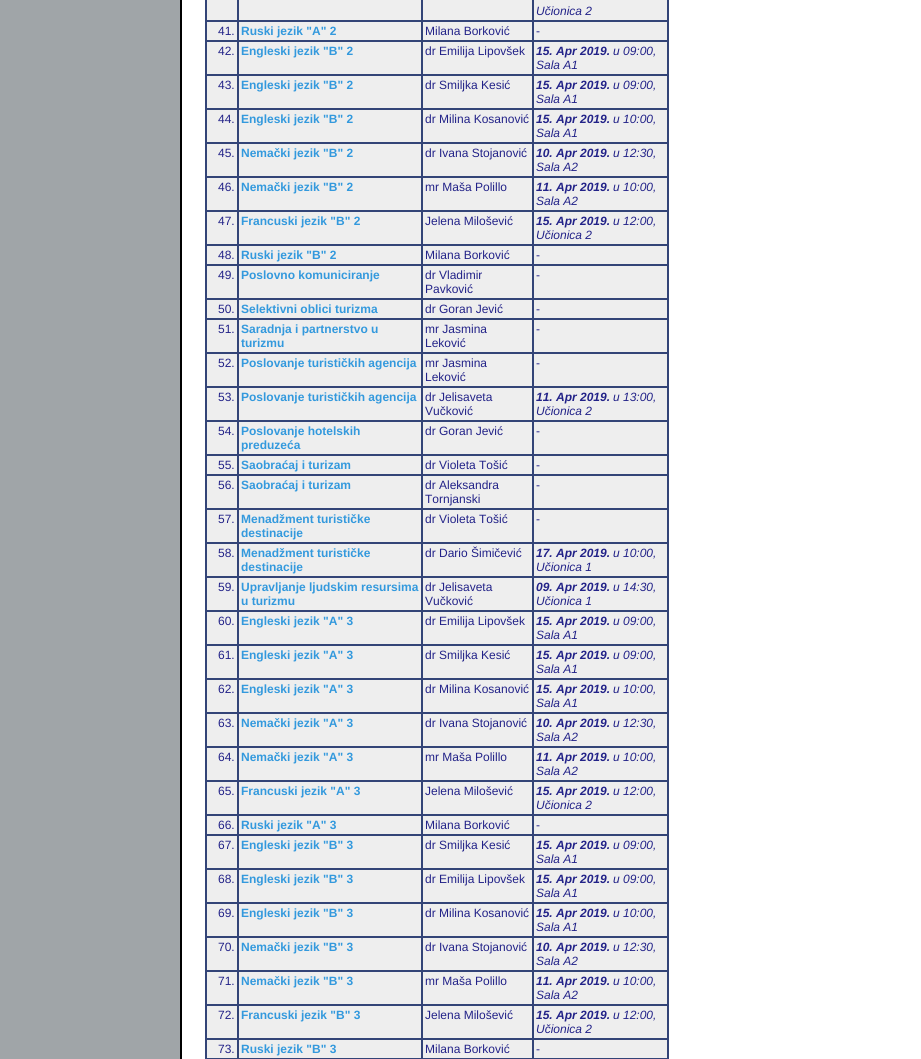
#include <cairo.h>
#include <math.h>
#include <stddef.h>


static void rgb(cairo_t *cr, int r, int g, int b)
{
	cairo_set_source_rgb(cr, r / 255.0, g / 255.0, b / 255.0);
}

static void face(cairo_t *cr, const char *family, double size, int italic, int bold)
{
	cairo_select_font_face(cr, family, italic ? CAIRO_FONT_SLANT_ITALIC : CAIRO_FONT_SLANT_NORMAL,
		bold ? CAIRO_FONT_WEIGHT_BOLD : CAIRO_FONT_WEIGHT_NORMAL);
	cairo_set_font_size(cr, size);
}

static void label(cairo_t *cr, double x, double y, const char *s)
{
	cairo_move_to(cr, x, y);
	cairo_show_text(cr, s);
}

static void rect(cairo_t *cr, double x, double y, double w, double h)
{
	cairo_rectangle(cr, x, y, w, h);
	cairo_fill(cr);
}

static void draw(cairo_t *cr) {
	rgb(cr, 255, 255, 255);
	cairo_paint(cr);
	rgb(cr, 160, 165, 168);
	rect(cr, 0, 0, 180, 1059);
	rgb(cr, 0, 0, 0);
	rect(cr, 180, 0, 2, 1059);
	rgb(cr, 238, 238, 238);
	rect(cr, 207, 0, 460, 1058);
	cairo_rectangle(cr, 205.5, -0.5, 463, 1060);
	rgb(cr, 51, 68, 119);
	cairo_set_line_width(cr, 1);
	cairo_stroke(cr);
	cairo_rectangle(cr, 206.5, -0.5, 31, 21);
	cairo_stroke(cr);
	cairo_rectangle(cr, 238.5, -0.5, 183, 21);
	cairo_stroke(cr);
	cairo_rectangle(cr, 422.5, -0.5, 110, 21);
	cairo_stroke(cr);
	cairo_rectangle(cr, 533.5, -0.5, 134, 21);
	cairo_stroke(cr);
	face(cr, "Liberation Sans", 12, 1, 0);
	rgb(cr, 34, 34, 136);
	label(cr, 536, 15, "Učionica 2");
	cairo_rectangle(cr, 206.5, 21.5, 31, 19);
	rgb(cr, 51, 68, 119);
	cairo_stroke(cr);
	face(cr, "Liberation Sans", 12, 0, 0);
	rgb(cr, 34, 34, 136);
	label(cr, 218, 35, "41.");
	cairo_rectangle(cr, 238.5, 21.5, 183, 19);
	rgb(cr, 51, 68, 119);
	cairo_stroke(cr);
	face(cr, "Liberation Sans", 12, 0, 1);
	rgb(cr, 51, 153, 221);
	label(cr, 241, 35, "Ruski jezik \"A\" 2");
	cairo_rectangle(cr, 422.5, 21.5, 110, 19);
	rgb(cr, 51, 68, 119);
	cairo_stroke(cr);
	face(cr, "Liberation Sans", 12, 0, 0);
	rgb(cr, 34, 34, 136);
	label(cr, 425, 35, "Milana Borković");
	cairo_rectangle(cr, 533.5, 21.5, 134, 19);
	rgb(cr, 51, 68, 119);
	cairo_stroke(cr);
	rgb(cr, 34, 34, 136);
	label(cr, 536, 35, "-");
	cairo_rectangle(cr, 206.5, 41.5, 31, 33);
	rgb(cr, 51, 68, 119);
	cairo_stroke(cr);
	rgb(cr, 34, 34, 136);
	label(cr, 218, 55, "42.");
	cairo_rectangle(cr, 238.5, 41.5, 183, 33);
	rgb(cr, 51, 68, 119);
	cairo_stroke(cr);
	face(cr, "Liberation Sans", 12, 0, 1);
	rgb(cr, 51, 153, 221);
	label(cr, 241, 55, "Engleski jezik \"B\" 2");
	cairo_rectangle(cr, 422.5, 41.5, 110, 33);
	rgb(cr, 51, 68, 119);
	cairo_stroke(cr);
	face(cr, "Liberation Sans", 12, 0, 0);
	rgb(cr, 34, 34, 136);
	label(cr, 425, 55, "dr Emilija Lipovšek");
	cairo_rectangle(cr, 533.5, 41.5, 134, 33);
	rgb(cr, 51, 68, 119);
	cairo_stroke(cr);
	face(cr, "Liberation Sans", 12, 1, 1);
	rgb(cr, 34, 34, 136);
	label(cr, 536, 55, "15. Apr 2019.");
	face(cr, "Liberation Sans", 12, 1, 0);
	label(cr, 613, 55, "u 09:00,");
	label(cr, 536, 69, "Sala А1");
	cairo_rectangle(cr, 206.5, 75.5, 31, 33);
	rgb(cr, 51, 68, 119);
	cairo_stroke(cr);
	face(cr, "Liberation Sans", 12, 0, 0);
	rgb(cr, 34, 34, 136);
	label(cr, 218, 89, "43.");
	cairo_rectangle(cr, 238.5, 75.5, 183, 33);
	rgb(cr, 51, 68, 119);
	cairo_stroke(cr);
	face(cr, "Liberation Sans", 12, 0, 1);
	rgb(cr, 51, 153, 221);
	label(cr, 241, 89, "Engleski jezik \"B\" 2");
	cairo_rectangle(cr, 422.5, 75.5, 110, 33);
	rgb(cr, 51, 68, 119);
	cairo_stroke(cr);
	face(cr, "Liberation Sans", 12, 0, 0);
	rgb(cr, 34, 34, 136);
	label(cr, 425, 89, "dr Smiljka Kesić");
	cairo_rectangle(cr, 533.5, 75.5, 134, 33);
	rgb(cr, 51, 68, 119);
	cairo_stroke(cr);
	face(cr, "Liberation Sans", 12, 1, 1);
	rgb(cr, 34, 34, 136);
	label(cr, 536, 89, "15. Apr 2019.");
	face(cr, "Liberation Sans", 12, 1, 0);
	label(cr, 613, 89, "u 09:00,");
	label(cr, 536, 103, "Sala А1");
	cairo_rectangle(cr, 206.5, 109.5, 31, 33);
	rgb(cr, 51, 68, 119);
	cairo_stroke(cr);
	face(cr, "Liberation Sans", 12, 0, 0);
	rgb(cr, 34, 34, 136);
	label(cr, 218, 123, "44.");
	cairo_rectangle(cr, 238.5, 109.5, 183, 33);
	rgb(cr, 51, 68, 119);
	cairo_stroke(cr);
	face(cr, "Liberation Sans", 12, 0, 1);
	rgb(cr, 51, 153, 221);
	label(cr, 241, 123, "Engleski jezik \"B\" 2");
	cairo_rectangle(cr, 422.5, 109.5, 110, 33);
	rgb(cr, 51, 68, 119);
	cairo_stroke(cr);
	face(cr, "Liberation Sans", 12, 0, 0);
	rgb(cr, 34, 34, 136);
	label(cr, 425, 123, "dr Milina Kosanović");
	cairo_rectangle(cr, 533.5, 109.5, 134, 33);
	rgb(cr, 51, 68, 119);
	cairo_stroke(cr);
	face(cr, "Liberation Sans", 12, 1, 1);
	rgb(cr, 34, 34, 136);
	label(cr, 536, 123, "15. Apr 2019.");
	face(cr, "Liberation Sans", 12, 1, 0);
	label(cr, 613, 123, "u 10:00,");
	label(cr, 536, 137, "Sala А1");
	cairo_rectangle(cr, 206.5, 143.5, 31, 33);
	rgb(cr, 51, 68, 119);
	cairo_stroke(cr);
	face(cr, "Liberation Sans", 12, 0, 0);
	rgb(cr, 34, 34, 136);
	label(cr, 218, 157, "45.");
	cairo_rectangle(cr, 238.5, 143.5, 183, 33);
	rgb(cr, 51, 68, 119);
	cairo_stroke(cr);
	face(cr, "Liberation Sans", 12, 0, 1);
	rgb(cr, 51, 153, 221);
	label(cr, 241, 157, "Nemački jezik \"B\" 2");
	cairo_rectangle(cr, 422.5, 143.5, 110, 33);
	rgb(cr, 51, 68, 119);
	cairo_stroke(cr);
	face(cr, "Liberation Sans", 12, 0, 0);
	rgb(cr, 34, 34, 136);
	label(cr, 425, 157, "dr Ivana Stojanović");
	cairo_rectangle(cr, 533.5, 143.5, 134, 33);
	rgb(cr, 51, 68, 119);
	cairo_stroke(cr);
	face(cr, "Liberation Sans", 12, 1, 1);
	rgb(cr, 34, 34, 136);
	label(cr, 536, 157, "10. Apr 2019.");
	face(cr, "Liberation Sans", 12, 1, 0);
	label(cr, 613, 157, "u 12:30,");
	label(cr, 536, 171, "Sala А2");
	cairo_rectangle(cr, 206.5, 177.5, 31, 33);
	rgb(cr, 51, 68, 119);
	cairo_stroke(cr);
	face(cr, "Liberation Sans", 12, 0, 0);
	rgb(cr, 34, 34, 136);
	label(cr, 218, 191, "46.");
	cairo_rectangle(cr, 238.5, 177.5, 183, 33);
	rgb(cr, 51, 68, 119);
	cairo_stroke(cr);
	face(cr, "Liberation Sans", 12, 0, 1);
	rgb(cr, 51, 153, 221);
	label(cr, 241, 191, "Nemački jezik \"B\" 2");
	cairo_rectangle(cr, 422.5, 177.5, 110, 33);
	rgb(cr, 51, 68, 119);
	cairo_stroke(cr);
	face(cr, "Liberation Sans", 12, 0, 0);
	rgb(cr, 34, 34, 136);
	label(cr, 425, 191, "mr Maša Polillo");
	cairo_rectangle(cr, 533.5, 177.5, 134, 33);
	rgb(cr, 51, 68, 119);
	cairo_stroke(cr);
	face(cr, "Liberation Sans", 12, 1, 1);
	rgb(cr, 34, 34, 136);
	label(cr, 536, 191, "11. Apr 2019.");
	face(cr, "Liberation Sans", 12, 1, 0);
	label(cr, 613, 191, "u 10:00,");
	label(cr, 536, 205, "Sala А2");
	cairo_rectangle(cr, 206.5, 211.5, 31, 33);
	rgb(cr, 51, 68, 119);
	cairo_stroke(cr);
	face(cr, "Liberation Sans", 12, 0, 0);
	rgb(cr, 34, 34, 136);
	label(cr, 218, 225, "47.");
	cairo_rectangle(cr, 238.5, 211.5, 183, 33);
	rgb(cr, 51, 68, 119);
	cairo_stroke(cr);
	face(cr, "Liberation Sans", 12, 0, 1);
	rgb(cr, 51, 153, 221);
	label(cr, 241, 225, "Francuski jezik \"B\" 2");
	cairo_rectangle(cr, 422.5, 211.5, 110, 33);
	rgb(cr, 51, 68, 119);
	cairo_stroke(cr);
	face(cr, "Liberation Sans", 12, 0, 0);
	rgb(cr, 34, 34, 136);
	label(cr, 425, 225, "Jelena Milošević");
	cairo_rectangle(cr, 533.5, 211.5, 134, 33);
	rgb(cr, 51, 68, 119);
	cairo_stroke(cr);
	face(cr, "Liberation Sans", 12, 1, 1);
	rgb(cr, 34, 34, 136);
	label(cr, 536, 225, "15. Apr 2019.");
	face(cr, "Liberation Sans", 12, 1, 0);
	label(cr, 613, 225, "u 12:00,");
	label(cr, 536, 239, "Učionica 2");
	cairo_rectangle(cr, 206.5, 245.5, 31, 19);
	rgb(cr, 51, 68, 119);
	cairo_stroke(cr);
	face(cr, "Liberation Sans", 12, 0, 0);
	rgb(cr, 34, 34, 136);
	label(cr, 218, 259, "48.");
	cairo_rectangle(cr, 238.5, 245.5, 183, 19);
	rgb(cr, 51, 68, 119);
	cairo_stroke(cr);
	face(cr, "Liberation Sans", 12, 0, 1);
	rgb(cr, 51, 153, 221);
	label(cr, 241, 259, "Ruski jezik \"B\" 2");
	cairo_rectangle(cr, 422.5, 245.5, 110, 19);
	rgb(cr, 51, 68, 119);
	cairo_stroke(cr);
	face(cr, "Liberation Sans", 12, 0, 0);
	rgb(cr, 34, 34, 136);
	label(cr, 425, 259, "Milana Borković");
	cairo_rectangle(cr, 533.5, 245.5, 134, 19);
	rgb(cr, 51, 68, 119);
	cairo_stroke(cr);
	rgb(cr, 34, 34, 136);
	label(cr, 536, 259, "-");
	cairo_rectangle(cr, 206.5, 265.5, 31, 33);
	rgb(cr, 51, 68, 119);
	cairo_stroke(cr);
	rgb(cr, 34, 34, 136);
	label(cr, 218, 279, "49.");
	cairo_rectangle(cr, 238.5, 265.5, 183, 33);
	rgb(cr, 51, 68, 119);
	cairo_stroke(cr);
	face(cr, "Liberation Sans", 12, 0, 1);
	rgb(cr, 51, 153, 221);
	label(cr, 241, 279, "Poslovno komuniciranje");
	cairo_rectangle(cr, 422.5, 265.5, 110, 33);
	rgb(cr, 51, 68, 119);
	cairo_stroke(cr);
	face(cr, "Liberation Sans", 12, 0, 0);
	rgb(cr, 34, 34, 136);
	label(cr, 425, 279, "dr Vladimir");
	label(cr, 425, 293, "Pavković");
	cairo_rectangle(cr, 533.5, 265.5, 134, 33);
	rgb(cr, 51, 68, 119);
	cairo_stroke(cr);
	rgb(cr, 34, 34, 136);
	label(cr, 536, 279, "-");
	cairo_rectangle(cr, 206.5, 299.5, 31, 19);
	rgb(cr, 51, 68, 119);
	cairo_stroke(cr);
	rgb(cr, 34, 34, 136);
	label(cr, 218, 313, "50.");
	cairo_rectangle(cr, 238.5, 299.5, 183, 19);
	rgb(cr, 51, 68, 119);
	cairo_stroke(cr);
	face(cr, "Liberation Sans", 12, 0, 1);
	rgb(cr, 51, 153, 221);
	label(cr, 241, 313, "Selektivni oblici turizma");
	cairo_rectangle(cr, 422.5, 299.5, 110, 19);
	rgb(cr, 51, 68, 119);
	cairo_stroke(cr);
	face(cr, "Liberation Sans", 12, 0, 0);
	rgb(cr, 34, 34, 136);
	label(cr, 425, 313, "dr Goran Jević");
	cairo_rectangle(cr, 533.5, 299.5, 134, 19);
	rgb(cr, 51, 68, 119);
	cairo_stroke(cr);
	rgb(cr, 34, 34, 136);
	label(cr, 536, 313, "-");
	cairo_rectangle(cr, 206.5, 319.5, 31, 33);
	rgb(cr, 51, 68, 119);
	cairo_stroke(cr);
	rgb(cr, 34, 34, 136);
	label(cr, 218, 333, "51.");
	cairo_rectangle(cr, 238.5, 319.5, 183, 33);
	rgb(cr, 51, 68, 119);
	cairo_stroke(cr);
	face(cr, "Liberation Sans", 12, 0, 1);
	rgb(cr, 51, 153, 221);
	label(cr, 241, 333, "Saradnja i partnerstvo u");
	label(cr, 241, 347, "turizmu");
	cairo_rectangle(cr, 422.5, 319.5, 110, 33);
	rgb(cr, 51, 68, 119);
	cairo_stroke(cr);
	face(cr, "Liberation Sans", 12, 0, 0);
	rgb(cr, 34, 34, 136);
	label(cr, 425, 333, "mr Jasmina");
	label(cr, 425, 347, "Leković");
	cairo_rectangle(cr, 533.5, 319.5, 134, 33);
	rgb(cr, 51, 68, 119);
	cairo_stroke(cr);
	rgb(cr, 34, 34, 136);
	label(cr, 536, 333, "-");
	cairo_rectangle(cr, 206.5, 353.5, 31, 33);
	rgb(cr, 51, 68, 119);
	cairo_stroke(cr);
	rgb(cr, 34, 34, 136);
	label(cr, 218, 367, "52.");
	cairo_rectangle(cr, 238.5, 353.5, 183, 33);
	rgb(cr, 51, 68, 119);
	cairo_stroke(cr);
	face(cr, "Liberation Sans", 12, 0, 1);
	rgb(cr, 51, 153, 221);
	label(cr, 241, 367, "Poslovanje turističkih agencija");
	cairo_rectangle(cr, 422.5, 353.5, 110, 33);
	rgb(cr, 51, 68, 119);
	cairo_stroke(cr);
	face(cr, "Liberation Sans", 12, 0, 0);
	rgb(cr, 34, 34, 136);
	label(cr, 425, 367, "mr Jasmina");
	label(cr, 425, 381, "Leković");
	cairo_rectangle(cr, 533.5, 353.5, 134, 33);
	rgb(cr, 51, 68, 119);
	cairo_stroke(cr);
	rgb(cr, 34, 34, 136);
	label(cr, 536, 367, "-");
	cairo_rectangle(cr, 206.5, 387.5, 31, 33);
	rgb(cr, 51, 68, 119);
	cairo_stroke(cr);
	rgb(cr, 34, 34, 136);
	label(cr, 218, 401, "53.");
	cairo_rectangle(cr, 238.5, 387.5, 183, 33);
	rgb(cr, 51, 68, 119);
	cairo_stroke(cr);
	face(cr, "Liberation Sans", 12, 0, 1);
	rgb(cr, 51, 153, 221);
	label(cr, 241, 401, "Poslovanje turističkih agencija");
	cairo_rectangle(cr, 422.5, 387.5, 110, 33);
	rgb(cr, 51, 68, 119);
	cairo_stroke(cr);
	face(cr, "Liberation Sans", 12, 0, 0);
	rgb(cr, 34, 34, 136);
	label(cr, 425, 401, "dr Jelisaveta");
	label(cr, 425, 415, "Vučković");
	cairo_rectangle(cr, 533.5, 387.5, 134, 33);
	rgb(cr, 51, 68, 119);
	cairo_stroke(cr);
	face(cr, "Liberation Sans", 12, 1, 1);
	rgb(cr, 34, 34, 136);
	label(cr, 536, 401, "11. Apr 2019.");
	face(cr, "Liberation Sans", 12, 1, 0);
	label(cr, 613, 401, "u 13:00,");
	label(cr, 536, 415, "Učionica 2");
	cairo_rectangle(cr, 206.5, 421.5, 31, 33);
	rgb(cr, 51, 68, 119);
	cairo_stroke(cr);
	face(cr, "Liberation Sans", 12, 0, 0);
	rgb(cr, 34, 34, 136);
	label(cr, 218, 435, "54.");
	cairo_rectangle(cr, 238.5, 421.5, 183, 33);
	rgb(cr, 51, 68, 119);
	cairo_stroke(cr);
	face(cr, "Liberation Sans", 12, 0, 1);
	rgb(cr, 51, 153, 221);
	label(cr, 241, 435, "Poslovanje hotelskih");
	label(cr, 241, 449, "preduzeća");
	cairo_rectangle(cr, 422.5, 421.5, 110, 33);
	rgb(cr, 51, 68, 119);
	cairo_stroke(cr);
	face(cr, "Liberation Sans", 12, 0, 0);
	rgb(cr, 34, 34, 136);
	label(cr, 425, 435, "dr Goran Jević");
	cairo_rectangle(cr, 533.5, 421.5, 134, 33);
	rgb(cr, 51, 68, 119);
	cairo_stroke(cr);
	rgb(cr, 34, 34, 136);
	label(cr, 536, 435, "-");
	cairo_rectangle(cr, 206.5, 455.5, 31, 19);
	rgb(cr, 51, 68, 119);
	cairo_stroke(cr);
	rgb(cr, 34, 34, 136);
	label(cr, 218, 469, "55.");
	cairo_rectangle(cr, 238.5, 455.5, 183, 19);
	rgb(cr, 51, 68, 119);
	cairo_stroke(cr);
	face(cr, "Liberation Sans", 12, 0, 1);
	rgb(cr, 51, 153, 221);
	label(cr, 241, 469, "Saobraćaj i turizam");
	cairo_rectangle(cr, 422.5, 455.5, 110, 19);
	rgb(cr, 51, 68, 119);
	cairo_stroke(cr);
	face(cr, "Liberation Sans", 12, 0, 0);
	rgb(cr, 34, 34, 136);
	label(cr, 425, 469, "dr Violeta Tošić");
	cairo_rectangle(cr, 533.5, 455.5, 134, 19);
	rgb(cr, 51, 68, 119);
	cairo_stroke(cr);
	rgb(cr, 34, 34, 136);
	label(cr, 536, 469, "-");
	cairo_rectangle(cr, 206.5, 475.5, 31, 33);
	rgb(cr, 51, 68, 119);
	cairo_stroke(cr);
	rgb(cr, 34, 34, 136);
	label(cr, 218, 489, "56.");
	cairo_rectangle(cr, 238.5, 475.5, 183, 33);
	rgb(cr, 51, 68, 119);
	cairo_stroke(cr);
	face(cr, "Liberation Sans", 12, 0, 1);
	rgb(cr, 51, 153, 221);
	label(cr, 241, 489, "Saobraćaj i turizam");
	cairo_rectangle(cr, 422.5, 475.5, 110, 33);
	rgb(cr, 51, 68, 119);
	cairo_stroke(cr);
	face(cr, "Liberation Sans", 12, 0, 0);
	rgb(cr, 34, 34, 136);
	label(cr, 425, 489, "dr Aleksandra");
	label(cr, 425, 503, "Tornjanski");
	cairo_rectangle(cr, 533.5, 475.5, 134, 33);
	rgb(cr, 51, 68, 119);
	cairo_stroke(cr);
	rgb(cr, 34, 34, 136);
	label(cr, 536, 489, "-");
	cairo_rectangle(cr, 206.5, 509.5, 31, 33);
	rgb(cr, 51, 68, 119);
	cairo_stroke(cr);
	rgb(cr, 34, 34, 136);
	label(cr, 218, 523, "57.");
	cairo_rectangle(cr, 238.5, 509.5, 183, 33);
	rgb(cr, 51, 68, 119);
	cairo_stroke(cr);
	face(cr, "Liberation Sans", 12, 0, 1);
	rgb(cr, 51, 153, 221);
	label(cr, 241, 523, "Menadžment turističke");
	label(cr, 241, 537, "destinacije");
	cairo_rectangle(cr, 422.5, 509.5, 110, 33);
	rgb(cr, 51, 68, 119);
	cairo_stroke(cr);
	face(cr, "Liberation Sans", 12, 0, 0);
	rgb(cr, 34, 34, 136);
	label(cr, 425, 523, "dr Violeta Tošić");
	cairo_rectangle(cr, 533.5, 509.5, 134, 33);
	rgb(cr, 51, 68, 119);
	cairo_stroke(cr);
	rgb(cr, 34, 34, 136);
	label(cr, 536, 523, "-");
	cairo_rectangle(cr, 206.5, 543.5, 31, 33);
	rgb(cr, 51, 68, 119);
	cairo_stroke(cr);
	rgb(cr, 34, 34, 136);
	label(cr, 218, 557, "58.");
	cairo_rectangle(cr, 238.5, 543.5, 183, 33);
	rgb(cr, 51, 68, 119);
	cairo_stroke(cr);
	face(cr, "Liberation Sans", 12, 0, 1);
	rgb(cr, 51, 153, 221);
	label(cr, 241, 557, "Menadžment turističke");
	label(cr, 241, 571, "destinacije");
	cairo_rectangle(cr, 422.5, 543.5, 110, 33);
	rgb(cr, 51, 68, 119);
	cairo_stroke(cr);
	face(cr, "Liberation Sans", 12, 0, 0);
	rgb(cr, 34, 34, 136);
	label(cr, 425, 557, "dr Dario Šimičević");
	cairo_rectangle(cr, 533.5, 543.5, 134, 33);
	rgb(cr, 51, 68, 119);
	cairo_stroke(cr);
	face(cr, "Liberation Sans", 12, 1, 1);
	rgb(cr, 34, 34, 136);
	label(cr, 536, 557, "17. Apr 2019.");
	face(cr, "Liberation Sans", 12, 1, 0);
	label(cr, 613, 557, "u 10:00,");
	label(cr, 536, 571, "Učionica 1");
	cairo_rectangle(cr, 206.5, 577.5, 31, 33);
	rgb(cr, 51, 68, 119);
	cairo_stroke(cr);
	face(cr, "Liberation Sans", 12, 0, 0);
	rgb(cr, 34, 34, 136);
	label(cr, 218, 591, "59.");
	cairo_rectangle(cr, 238.5, 577.5, 183, 33);
	rgb(cr, 51, 68, 119);
	cairo_stroke(cr);
	face(cr, "Liberation Sans", 12, 0, 1);
	rgb(cr, 51, 153, 221);
	label(cr, 241, 591, "Upravljanje ljudskim resursima");
	label(cr, 241, 605, "u turizmu");
	cairo_rectangle(cr, 422.5, 577.5, 110, 33);
	rgb(cr, 51, 68, 119);
	cairo_stroke(cr);
	face(cr, "Liberation Sans", 12, 0, 0);
	rgb(cr, 34, 34, 136);
	label(cr, 425, 591, "dr Jelisaveta");
	label(cr, 425, 605, "Vučković");
	cairo_rectangle(cr, 533.5, 577.5, 134, 33);
	rgb(cr, 51, 68, 119);
	cairo_stroke(cr);
	face(cr, "Liberation Sans", 12, 1, 1);
	rgb(cr, 34, 34, 136);
	label(cr, 536, 591, "09. Apr 2019.");
	face(cr, "Liberation Sans", 12, 1, 0);
	label(cr, 613, 591, "u 14:30,");
	label(cr, 536, 605, "Učionica 1");
	cairo_rectangle(cr, 206.5, 611.5, 31, 33);
	rgb(cr, 51, 68, 119);
	cairo_stroke(cr);
	face(cr, "Liberation Sans", 12, 0, 0);
	rgb(cr, 34, 34, 136);
	label(cr, 218, 625, "60.");
	cairo_rectangle(cr, 238.5, 611.5, 183, 33);
	rgb(cr, 51, 68, 119);
	cairo_stroke(cr);
	face(cr, "Liberation Sans", 12, 0, 1);
	rgb(cr, 51, 153, 221);
	label(cr, 241, 625, "Engleski jezik \"A\" 3");
	cairo_rectangle(cr, 422.5, 611.5, 110, 33);
	rgb(cr, 51, 68, 119);
	cairo_stroke(cr);
	face(cr, "Liberation Sans", 12, 0, 0);
	rgb(cr, 34, 34, 136);
	label(cr, 425, 625, "dr Emilija Lipovšek");
	cairo_rectangle(cr, 533.5, 611.5, 134, 33);
	rgb(cr, 51, 68, 119);
	cairo_stroke(cr);
	face(cr, "Liberation Sans", 12, 1, 1);
	rgb(cr, 34, 34, 136);
	label(cr, 536, 625, "15. Apr 2019.");
	face(cr, "Liberation Sans", 12, 1, 0);
	label(cr, 613, 625, "u 09:00,");
	label(cr, 536, 639, "Sala А1");
	cairo_rectangle(cr, 206.5, 645.5, 31, 33);
	rgb(cr, 51, 68, 119);
	cairo_stroke(cr);
	face(cr, "Liberation Sans", 12, 0, 0);
	rgb(cr, 34, 34, 136);
	label(cr, 218, 659, "61.");
	cairo_rectangle(cr, 238.5, 645.5, 183, 33);
	rgb(cr, 51, 68, 119);
	cairo_stroke(cr);
	face(cr, "Liberation Sans", 12, 0, 1);
	rgb(cr, 51, 153, 221);
	label(cr, 241, 659, "Engleski jezik \"A\" 3");
	cairo_rectangle(cr, 422.5, 645.5, 110, 33);
	rgb(cr, 51, 68, 119);
	cairo_stroke(cr);
	face(cr, "Liberation Sans", 12, 0, 0);
	rgb(cr, 34, 34, 136);
	label(cr, 425, 659, "dr Smiljka Kesić");
	cairo_rectangle(cr, 533.5, 645.5, 134, 33);
	rgb(cr, 51, 68, 119);
	cairo_stroke(cr);
	face(cr, "Liberation Sans", 12, 1, 1);
	rgb(cr, 34, 34, 136);
	label(cr, 536, 659, "15. Apr 2019.");
	face(cr, "Liberation Sans", 12, 1, 0);
	label(cr, 613, 659, "u 09:00,");
	label(cr, 536, 673, "Sala А1");
	cairo_rectangle(cr, 206.5, 679.5, 31, 33);
	rgb(cr, 51, 68, 119);
	cairo_stroke(cr);
	face(cr, "Liberation Sans", 12, 0, 0);
	rgb(cr, 34, 34, 136);
	label(cr, 218, 693, "62.");
	cairo_rectangle(cr, 238.5, 679.5, 183, 33);
	rgb(cr, 51, 68, 119);
	cairo_stroke(cr);
	face(cr, "Liberation Sans", 12, 0, 1);
	rgb(cr, 51, 153, 221);
	label(cr, 241, 693, "Engleski jezik \"A\" 3");
	cairo_rectangle(cr, 422.5, 679.5, 110, 33);
	rgb(cr, 51, 68, 119);
	cairo_stroke(cr);
	face(cr, "Liberation Sans", 12, 0, 0);
	rgb(cr, 34, 34, 136);
	label(cr, 425, 693, "dr Milina Kosanović");
	cairo_rectangle(cr, 533.5, 679.5, 134, 33);
	rgb(cr, 51, 68, 119);
	cairo_stroke(cr);
	face(cr, "Liberation Sans", 12, 1, 1);
	rgb(cr, 34, 34, 136);
	label(cr, 536, 693, "15. Apr 2019.");
	face(cr, "Liberation Sans", 12, 1, 0);
	label(cr, 613, 693, "u 10:00,");
	label(cr, 536, 707, "Sala А1");
	cairo_rectangle(cr, 206.5, 713.5, 31, 33);
	rgb(cr, 51, 68, 119);
	cairo_stroke(cr);
	face(cr, "Liberation Sans", 12, 0, 0);
	rgb(cr, 34, 34, 136);
	label(cr, 218, 727, "63.");
	cairo_rectangle(cr, 238.5, 713.5, 183, 33);
	rgb(cr, 51, 68, 119);
	cairo_stroke(cr);
	face(cr, "Liberation Sans", 12, 0, 1);
	rgb(cr, 51, 153, 221);
	label(cr, 241, 727, "Nemački jezik \"A\" 3");
	cairo_rectangle(cr, 422.5, 713.5, 110, 33);
	rgb(cr, 51, 68, 119);
	cairo_stroke(cr);
	face(cr, "Liberation Sans", 12, 0, 0);
	rgb(cr, 34, 34, 136);
	label(cr, 425, 727, "dr Ivana Stojanović");
	cairo_rectangle(cr, 533.5, 713.5, 134, 33);
	rgb(cr, 51, 68, 119);
	cairo_stroke(cr);
	face(cr, "Liberation Sans", 12, 1, 1);
	rgb(cr, 34, 34, 136);
	label(cr, 536, 727, "10. Apr 2019.");
	face(cr, "Liberation Sans", 12, 1, 0);
	label(cr, 613, 727, "u 12:30,");
	label(cr, 536, 741, "Sala А2");
	cairo_rectangle(cr, 206.5, 747.5, 31, 33);
	rgb(cr, 51, 68, 119);
	cairo_stroke(cr);
	face(cr, "Liberation Sans", 12, 0, 0);
	rgb(cr, 34, 34, 136);
	label(cr, 218, 761, "64.");
	cairo_rectangle(cr, 238.5, 747.5, 183, 33);
	rgb(cr, 51, 68, 119);
	cairo_stroke(cr);
	face(cr, "Liberation Sans", 12, 0, 1);
	rgb(cr, 51, 153, 221);
	label(cr, 241, 761, "Nemački jezik \"A\" 3");
	cairo_rectangle(cr, 422.5, 747.5, 110, 33);
	rgb(cr, 51, 68, 119);
	cairo_stroke(cr);
	face(cr, "Liberation Sans", 12, 0, 0);
	rgb(cr, 34, 34, 136);
	label(cr, 425, 761, "mr Maša Polillo");
	cairo_rectangle(cr, 533.5, 747.5, 134, 33);
	rgb(cr, 51, 68, 119);
	cairo_stroke(cr);
	face(cr, "Liberation Sans", 12, 1, 1);
	rgb(cr, 34, 34, 136);
	label(cr, 536, 761, "11. Apr 2019.");
	face(cr, "Liberation Sans", 12, 1, 0);
	label(cr, 613, 761, "u 10:00,");
	label(cr, 536, 775, "Sala А2");
	cairo_rectangle(cr, 206.5, 781.5, 31, 33);
	rgb(cr, 51, 68, 119);
	cairo_stroke(cr);
	face(cr, "Liberation Sans", 12, 0, 0);
	rgb(cr, 34, 34, 136);
	label(cr, 218, 795, "65.");
	cairo_rectangle(cr, 238.5, 781.5, 183, 33);
	rgb(cr, 51, 68, 119);
	cairo_stroke(cr);
	face(cr, "Liberation Sans", 12, 0, 1);
	rgb(cr, 51, 153, 221);
	label(cr, 241, 795, "Francuski jezik \"A\" 3");
	cairo_rectangle(cr, 422.5, 781.5, 110, 33);
	rgb(cr, 51, 68, 119);
	cairo_stroke(cr);
	face(cr, "Liberation Sans", 12, 0, 0);
	rgb(cr, 34, 34, 136);
	label(cr, 425, 795, "Jelena Milošević");
	cairo_rectangle(cr, 533.5, 781.5, 134, 33);
	rgb(cr, 51, 68, 119);
	cairo_stroke(cr);
	face(cr, "Liberation Sans", 12, 1, 1);
	rgb(cr, 34, 34, 136);
	label(cr, 536, 795, "15. Apr 2019.");
	face(cr, "Liberation Sans", 12, 1, 0);
	label(cr, 613, 795, "u 12:00,");
	label(cr, 536, 809, "Učionica 2");
	cairo_rectangle(cr, 206.5, 815.5, 31, 19);
	rgb(cr, 51, 68, 119);
	cairo_stroke(cr);
	face(cr, "Liberation Sans", 12, 0, 0);
	rgb(cr, 34, 34, 136);
	label(cr, 218, 829, "66.");
	cairo_rectangle(cr, 238.5, 815.5, 183, 19);
	rgb(cr, 51, 68, 119);
	cairo_stroke(cr);
	face(cr, "Liberation Sans", 12, 0, 1);
	rgb(cr, 51, 153, 221);
	label(cr, 241, 829, "Ruski jezik \"A\" 3");
	cairo_rectangle(cr, 422.5, 815.5, 110, 19);
	rgb(cr, 51, 68, 119);
	cairo_stroke(cr);
	face(cr, "Liberation Sans", 12, 0, 0);
	rgb(cr, 34, 34, 136);
	label(cr, 425, 829, "Milana Borković");
	cairo_rectangle(cr, 533.5, 815.5, 134, 19);
	rgb(cr, 51, 68, 119);
	cairo_stroke(cr);
	rgb(cr, 34, 34, 136);
	label(cr, 536, 829, "-");
	cairo_rectangle(cr, 206.5, 835.5, 31, 33);
	rgb(cr, 51, 68, 119);
	cairo_stroke(cr);
	rgb(cr, 34, 34, 136);
	label(cr, 218, 849, "67.");
	cairo_rectangle(cr, 238.5, 835.5, 183, 33);
	rgb(cr, 51, 68, 119);
	cairo_stroke(cr);
	face(cr, "Liberation Sans", 12, 0, 1);
	rgb(cr, 51, 153, 221);
	label(cr, 241, 849, "Engleski jezik \"B\" 3");
	cairo_rectangle(cr, 422.5, 835.5, 110, 33);
	rgb(cr, 51, 68, 119);
	cairo_stroke(cr);
	face(cr, "Liberation Sans", 12, 0, 0);
	rgb(cr, 34, 34, 136);
	label(cr, 425, 849, "dr Smiljka Kesić");
	cairo_rectangle(cr, 533.5, 835.5, 134, 33);
	rgb(cr, 51, 68, 119);
	cairo_stroke(cr);
	face(cr, "Liberation Sans", 12, 1, 1);
	rgb(cr, 34, 34, 136);
	label(cr, 536, 849, "15. Apr 2019.");
	face(cr, "Liberation Sans", 12, 1, 0);
	label(cr, 613, 849, "u 09:00,");
	label(cr, 536, 863, "Sala А1");
	cairo_rectangle(cr, 206.5, 869.5, 31, 33);
	rgb(cr, 51, 68, 119);
	cairo_stroke(cr);
	face(cr, "Liberation Sans", 12, 0, 0);
	rgb(cr, 34, 34, 136);
	label(cr, 218, 883, "68.");
	cairo_rectangle(cr, 238.5, 869.5, 183, 33);
	rgb(cr, 51, 68, 119);
	cairo_stroke(cr);
	face(cr, "Liberation Sans", 12, 0, 1);
	rgb(cr, 51, 153, 221);
	label(cr, 241, 883, "Engleski jezik \"B\" 3");
	cairo_rectangle(cr, 422.5, 869.5, 110, 33);
	rgb(cr, 51, 68, 119);
	cairo_stroke(cr);
	face(cr, "Liberation Sans", 12, 0, 0);
	rgb(cr, 34, 34, 136);
	label(cr, 425, 883, "dr Emilija Lipovšek");
	cairo_rectangle(cr, 533.5, 869.5, 134, 33);
	rgb(cr, 51, 68, 119);
	cairo_stroke(cr);
	face(cr, "Liberation Sans", 12, 1, 1);
	rgb(cr, 34, 34, 136);
	label(cr, 536, 883, "15. Apr 2019.");
	face(cr, "Liberation Sans", 12, 1, 0);
	label(cr, 613, 883, "u 09:00,");
	label(cr, 536, 897, "Sala А1");
	cairo_rectangle(cr, 206.5, 903.5, 31, 33);
	rgb(cr, 51, 68, 119);
	cairo_stroke(cr);
	face(cr, "Liberation Sans", 12, 0, 0);
	rgb(cr, 34, 34, 136);
	label(cr, 218, 917, "69.");
	cairo_rectangle(cr, 238.5, 903.5, 183, 33);
	rgb(cr, 51, 68, 119);
	cairo_stroke(cr);
	face(cr, "Liberation Sans", 12, 0, 1);
	rgb(cr, 51, 153, 221);
	label(cr, 241, 917, "Engleski jezik \"B\" 3");
	cairo_rectangle(cr, 422.5, 903.5, 110, 33);
	rgb(cr, 51, 68, 119);
	cairo_stroke(cr);
	face(cr, "Liberation Sans", 12, 0, 0);
	rgb(cr, 34, 34, 136);
	label(cr, 425, 917, "dr Milina Kosanović");
	cairo_rectangle(cr, 533.5, 903.5, 134, 33);
	rgb(cr, 51, 68, 119);
	cairo_stroke(cr);
	face(cr, "Liberation Sans", 12, 1, 1);
	rgb(cr, 34, 34, 136);
	label(cr, 536, 917, "15. Apr 2019.");
	face(cr, "Liberation Sans", 12, 1, 0);
	label(cr, 613, 917, "u 10:00,");
	label(cr, 536, 931, "Sala А1");
	cairo_rectangle(cr, 206.5, 937.5, 31, 33);
	rgb(cr, 51, 68, 119);
	cairo_stroke(cr);
	face(cr, "Liberation Sans", 12, 0, 0);
	rgb(cr, 34, 34, 136);
	label(cr, 218, 951, "70.");
	cairo_rectangle(cr, 238.5, 937.5, 183, 33);
	rgb(cr, 51, 68, 119);
	cairo_stroke(cr);
	face(cr, "Liberation Sans", 12, 0, 1);
	rgb(cr, 51, 153, 221);
	label(cr, 241, 951, "Nemački jezik \"B\" 3");
	cairo_rectangle(cr, 422.5, 937.5, 110, 33);
	rgb(cr, 51, 68, 119);
	cairo_stroke(cr);
	face(cr, "Liberation Sans", 12, 0, 0);
	rgb(cr, 34, 34, 136);
	label(cr, 425, 951, "dr Ivana Stojanović");
	cairo_rectangle(cr, 533.5, 937.5, 134, 33);
	rgb(cr, 51, 68, 119);
	cairo_stroke(cr);
	face(cr, "Liberation Sans", 12, 1, 1);
	rgb(cr, 34, 34, 136);
	label(cr, 536, 951, "10. Apr 2019.");
	face(cr, "Liberation Sans", 12, 1, 0);
	label(cr, 613, 951, "u 12:30,");
	label(cr, 536, 965, "Sala А2");
	cairo_rectangle(cr, 206.5, 971.5, 31, 33);
	rgb(cr, 51, 68, 119);
	cairo_stroke(cr);
	face(cr, "Liberation Sans", 12, 0, 0);
	rgb(cr, 34, 34, 136);
	label(cr, 218, 985, "71.");
	cairo_rectangle(cr, 238.5, 971.5, 183, 33);
	rgb(cr, 51, 68, 119);
	cairo_stroke(cr);
	face(cr, "Liberation Sans", 12, 0, 1);
	rgb(cr, 51, 153, 221);
	label(cr, 241, 985, "Nemački jezik \"B\" 3");
	cairo_rectangle(cr, 422.5, 971.5, 110, 33);
	rgb(cr, 51, 68, 119);
	cairo_stroke(cr);
	face(cr, "Liberation Sans", 12, 0, 0);
	rgb(cr, 34, 34, 136);
	label(cr, 425, 985, "mr Maša Polillo");
	cairo_rectangle(cr, 533.5, 971.5, 134, 33);
	rgb(cr, 51, 68, 119);
	cairo_stroke(cr);
	face(cr, "Liberation Sans", 12, 1, 1);
	rgb(cr, 34, 34, 136);
	label(cr, 536, 985, "11. Apr 2019.");
	face(cr, "Liberation Sans", 12, 1, 0);
	label(cr, 613, 985, "u 10:00,");
	label(cr, 536, 999, "Sala А2");
	cairo_rectangle(cr, 206.5, 1005.5, 31, 33);
	rgb(cr, 51, 68, 119);
	cairo_stroke(cr);
	face(cr, "Liberation Sans", 12, 0, 0);
	rgb(cr, 34, 34, 136);
	label(cr, 218, 1019, "72.");
	cairo_rectangle(cr, 238.5, 1005.5, 183, 33);
	rgb(cr, 51, 68, 119);
	cairo_stroke(cr);
	face(cr, "Liberation Sans", 12, 0, 1);
	rgb(cr, 51, 153, 221);
	label(cr, 241, 1019, "Francuski jezik \"B\" 3");
	cairo_rectangle(cr, 422.5, 1005.5, 110, 33);
	rgb(cr, 51, 68, 119);
	cairo_stroke(cr);
	face(cr, "Liberation Sans", 12, 0, 0);
	rgb(cr, 34, 34, 136);
	label(cr, 425, 1019, "Jelena Milošević");
	cairo_rectangle(cr, 533.5, 1005.5, 134, 33);
	rgb(cr, 51, 68, 119);
	cairo_stroke(cr);
	face(cr, "Liberation Sans", 12, 1, 1);
	rgb(cr, 34, 34, 136);
	label(cr, 536, 1019, "15. Apr 2019.");
	face(cr, "Liberation Sans", 12, 1, 0);
	label(cr, 613, 1019, "u 12:00,");
	label(cr, 536, 1033, "Učionica 2");
	cairo_rectangle(cr, 206.5, 1039.5, 31, 19);
	rgb(cr, 51, 68, 119);
	cairo_stroke(cr);
	face(cr, "Liberation Sans", 12, 0, 0);
	rgb(cr, 34, 34, 136);
	label(cr, 218, 1053, "73.");
	cairo_rectangle(cr, 238.5, 1039.5, 183, 19);
	rgb(cr, 51, 68, 119);
	cairo_stroke(cr);
	face(cr, "Liberation Sans", 12, 0, 1);
	rgb(cr, 51, 153, 221);
	label(cr, 241, 1053, "Ruski jezik \"B\" 3");
	cairo_rectangle(cr, 422.5, 1039.5, 110, 19);
	rgb(cr, 51, 68, 119);
	cairo_stroke(cr);
	face(cr, "Liberation Sans", 12, 0, 0);
	rgb(cr, 34, 34, 136);
	label(cr, 425, 1053, "Milana Borković");
	cairo_rectangle(cr, 533.5, 1039.5, 134, 19);
	rgb(cr, 51, 68, 119);
	cairo_stroke(cr);
	rgb(cr, 34, 34, 136);
	label(cr, 536, 1053, "-");
}

int main(void) {
	cairo_surface_t *surface = cairo_image_surface_create(CAIRO_FORMAT_RGB24, 921, 1059);
	cairo_t *cr = cairo_create(surface);
	cairo_font_options_t *options = cairo_font_options_create();
	cairo_font_options_set_hint_metrics(options, CAIRO_HINT_METRICS_OFF);
	cairo_font_options_set_hint_style(options, CAIRO_HINT_STYLE_NONE);
	cairo_set_font_options(cr, options);
	cairo_set_miter_limit(cr, 4);
	draw(cr);
	cairo_surface_write_to_png(surface, "render.png");
	cairo_font_options_destroy(options);
	cairo_destroy(cr);
	cairo_surface_destroy(surface);
	return 0;
}
